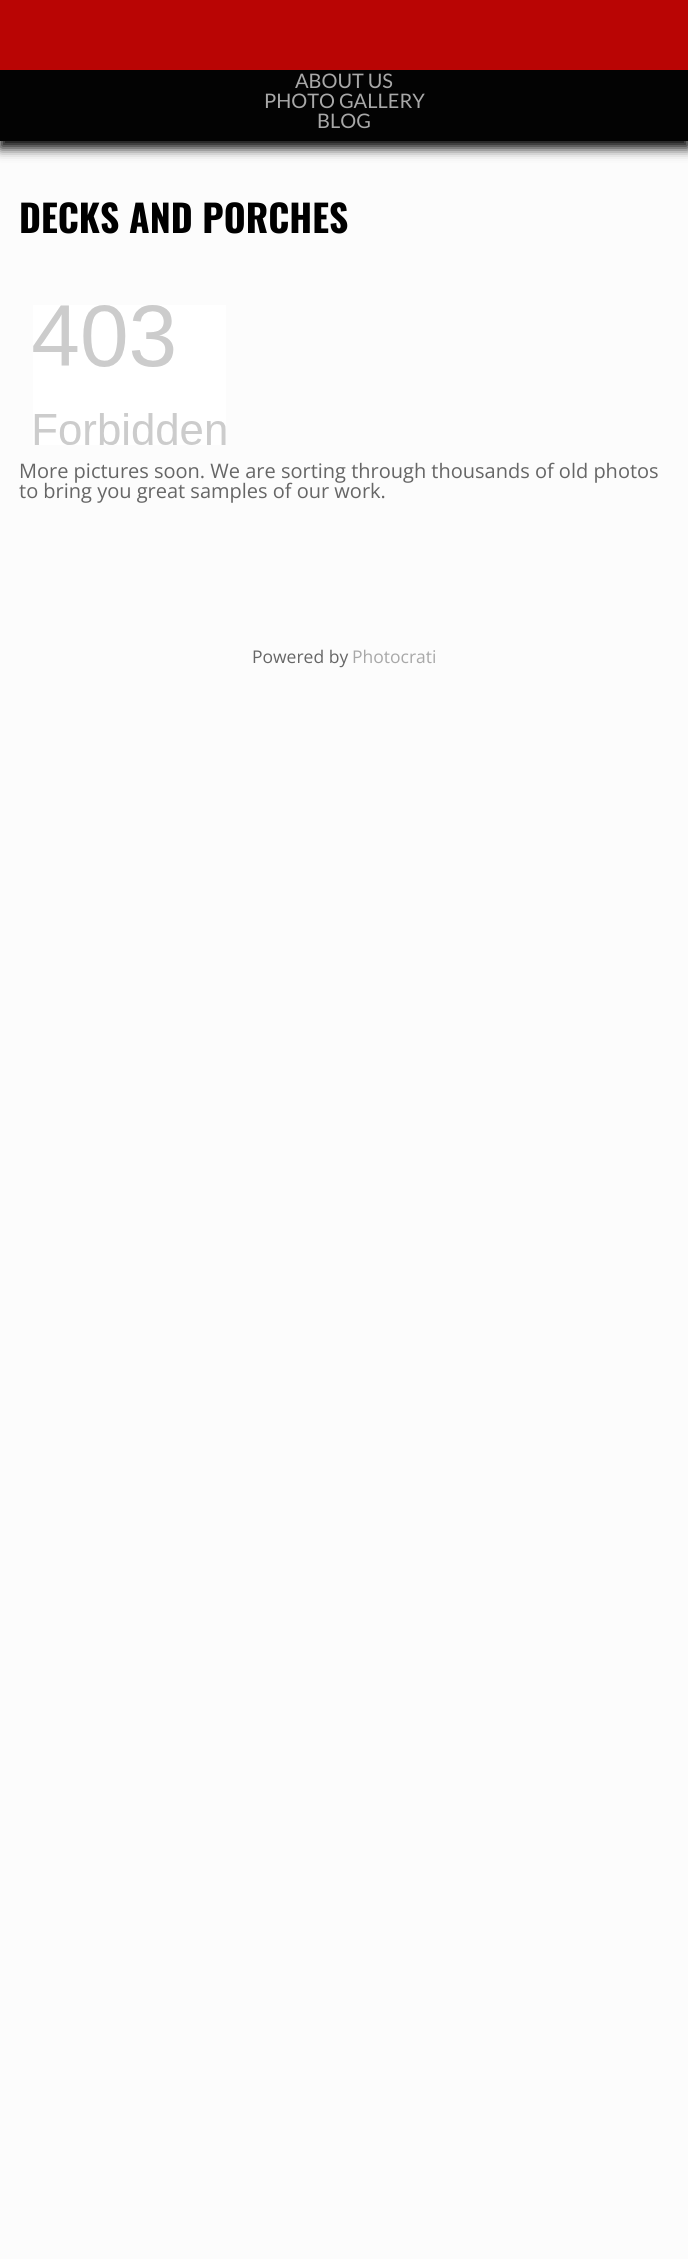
#include <cairo.h>
#include <math.h>
#include <stddef.h>


static void rgb(cairo_t *cr, int r, int g, int b)
{
	cairo_set_source_rgb(cr, r / 255.0, g / 255.0, b / 255.0);
}

static void face(cairo_t *cr, const char *family, double size, int italic, int bold)
{
	cairo_select_font_face(cr, family, italic ? CAIRO_FONT_SLANT_ITALIC : CAIRO_FONT_SLANT_NORMAL,
		bold ? CAIRO_FONT_WEIGHT_BOLD : CAIRO_FONT_WEIGHT_NORMAL);
	cairo_set_font_size(cr, size);
}

static void label(cairo_t *cr, double x, double y, const char *s)
{
	cairo_move_to(cr, x, y);
	cairo_show_text(cr, s);
}

static void rect(cairo_t *cr, double x, double y, double w, double h)
{
	cairo_rectangle(cr, x, y, w, h);
	cairo_fill(cr);
}

static void rrect(cairo_t *cr, double x, double y, double w, double h, double r)
{
	cairo_new_sub_path(cr);
	cairo_arc(cr, x + w - r, y + h - r, r, 0, M_PI / 2);
	cairo_arc(cr, x + r, y + h - r, r, M_PI / 2, M_PI);
	cairo_arc(cr, x + r, y + r, r, M_PI, 1.5 * M_PI);
	cairo_arc(cr, x + w - r, y + r, r, 1.5 * M_PI, 2 * M_PI);
	cairo_close_path(cr);
}

static void soft_shadow(cairo_t *cr, double x, double y, double w, double h, double r, double blur, double alpha)
{
	cairo_push_group_with_content(cr, CAIRO_CONTENT_ALPHA);
	cairo_set_operator(cr, CAIRO_OPERATOR_SOURCE);
	for (int i = 15; i >= -15 && fmin(w, h) + blur * i / 3 > 0; i -= 2) {
		double e = blur * i / 6;
		cairo_set_source_rgba(cr, 0, 0, 0, alpha * erfc((i - 1) / 8.5) / 2);
		rrect(cr, x - e, y - e, w + 2 * e, h + 2 * e, fmax(0, fmin(r + e + blur * .6, fmin(w, h) / 2 + e)));
		cairo_fill(cr);
	}
	cairo_pattern_t *soft = cairo_pop_group(cr);
	cairo_mask(cr, soft);
	cairo_pattern_destroy(soft);
}

static void image(cairo_t *cr, const char *path, double x, double y, double w, double h)
{
	cairo_surface_t *image = cairo_image_surface_create_from_png(path);
	cairo_save(cr);
	cairo_set_source_surface(cr, image, x, y);
	cairo_rectangle(cr, x, y, w, h);
	cairo_fill(cr);
	cairo_restore(cr);
	cairo_surface_destroy(image);
}

static void draw(cairo_t *cr) {
	rgb(cr, 252, 252, 252);
	cairo_paint(cr);
	rgb(cr, 0, 0, 0);
	soft_shadow(cr, 0, 6, 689, 142, 0, 6, 1);
	rgb(cr, 3, 3, 3);
	rect(cr, 0, 70, 688, 71);
	rgb(cr, 185, 5, 4);
	rect(cr, 0, 0, 688, 70);
	face(cr, "Lato", 20, 0, 0);
	rgb(cr, 168, 168, 168);
	label(cr, 295, 88, "ABOUT US");
	label(cr, 264, 108, "PHOTO GALLERY");
	label(cr, 317, 128, "BLOG");
	face(cr, "Oswald", 37.5, 0, 1);
	rgb(cr, 0, 0, 0);
	label(cr, 19, 233, "DECKS AND PORCHES");
	image(cr, "image0.png", 33, 305, 193, 140);
	face(cr, "Open Sans", 20, 0, 0);
	rgb(cr, 102, 102, 102);
	label(cr, 19, 478, "More pictures soon. We are sorting through thousands of old photos");
	label(cr, 19, 498, "to bring you great samples of our work.");
	face(cr, "Open Sans", 17.5, 0, 0);
	label(cr, 252, 663, "Powered by");
	rgb(cr, 168, 168, 168);
	label(cr, 352, 663, "Photocrati");
}

int main(void) {
	cairo_surface_t *surface = cairo_image_surface_create(CAIRO_FORMAT_RGB24, 688, 2259);
	cairo_t *cr = cairo_create(surface);
	cairo_font_options_t *options = cairo_font_options_create();
	cairo_font_options_set_hint_metrics(options, CAIRO_HINT_METRICS_OFF);
	cairo_font_options_set_hint_style(options, CAIRO_HINT_STYLE_NONE);
	cairo_set_font_options(cr, options);
	cairo_set_miter_limit(cr, 4);
	draw(cr);
	cairo_surface_write_to_png(surface, "render.png");
	cairo_font_options_destroy(options);
	cairo_destroy(cr);
	cairo_surface_destroy(surface);
	return 0;
}
